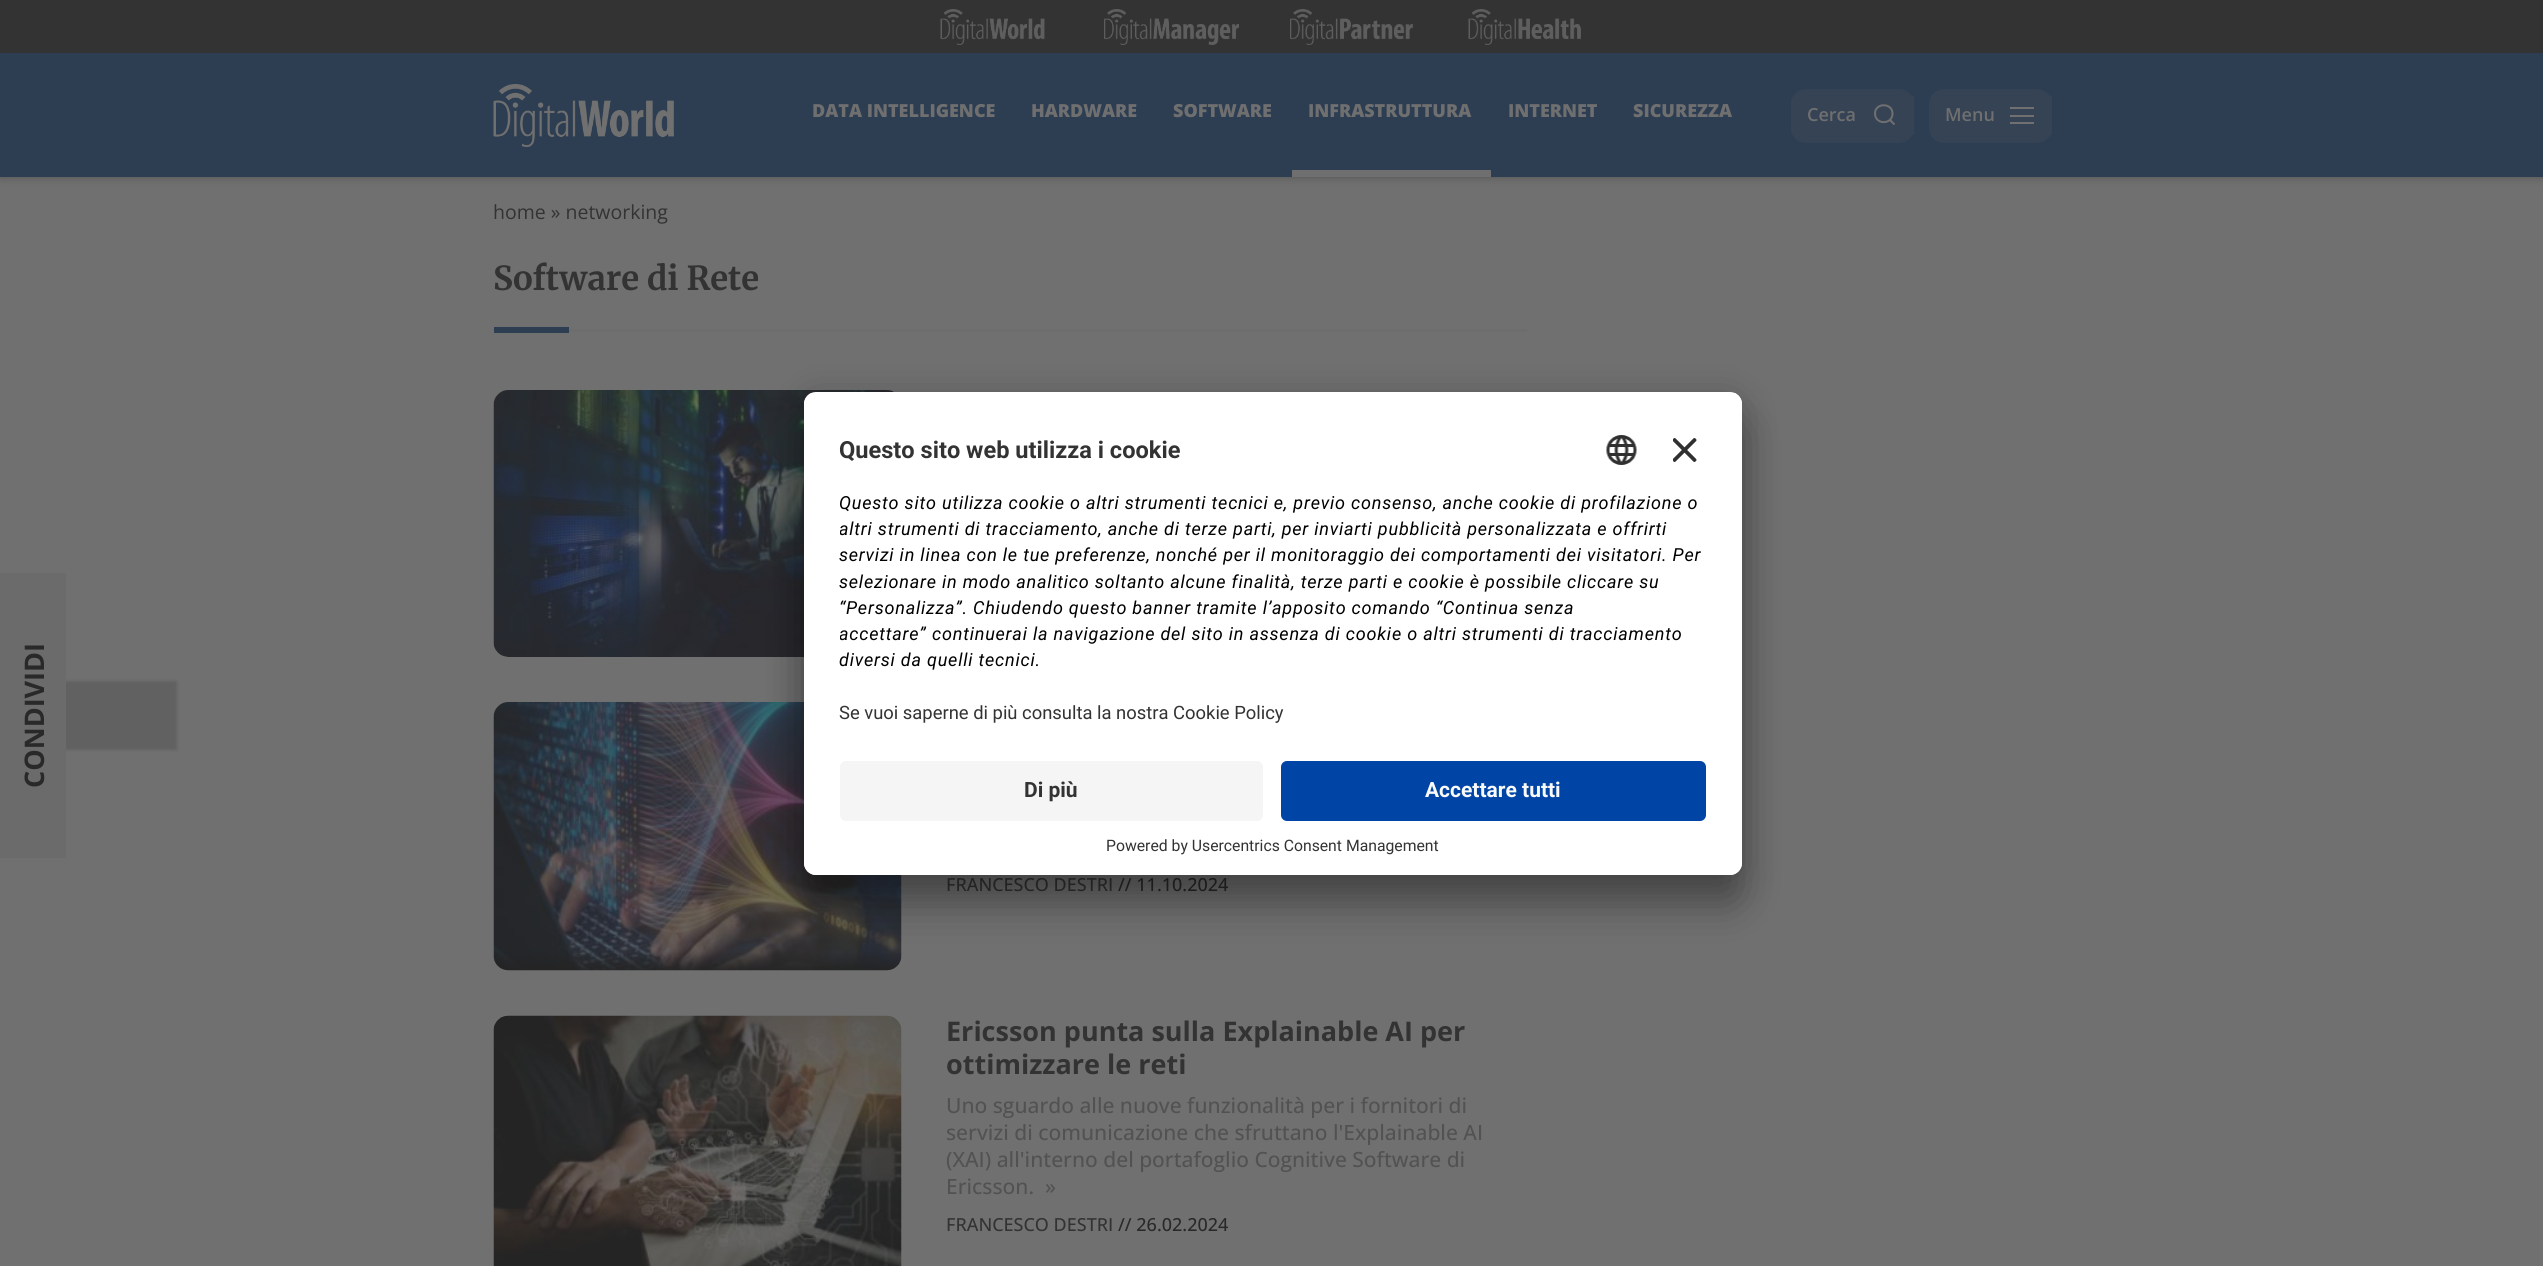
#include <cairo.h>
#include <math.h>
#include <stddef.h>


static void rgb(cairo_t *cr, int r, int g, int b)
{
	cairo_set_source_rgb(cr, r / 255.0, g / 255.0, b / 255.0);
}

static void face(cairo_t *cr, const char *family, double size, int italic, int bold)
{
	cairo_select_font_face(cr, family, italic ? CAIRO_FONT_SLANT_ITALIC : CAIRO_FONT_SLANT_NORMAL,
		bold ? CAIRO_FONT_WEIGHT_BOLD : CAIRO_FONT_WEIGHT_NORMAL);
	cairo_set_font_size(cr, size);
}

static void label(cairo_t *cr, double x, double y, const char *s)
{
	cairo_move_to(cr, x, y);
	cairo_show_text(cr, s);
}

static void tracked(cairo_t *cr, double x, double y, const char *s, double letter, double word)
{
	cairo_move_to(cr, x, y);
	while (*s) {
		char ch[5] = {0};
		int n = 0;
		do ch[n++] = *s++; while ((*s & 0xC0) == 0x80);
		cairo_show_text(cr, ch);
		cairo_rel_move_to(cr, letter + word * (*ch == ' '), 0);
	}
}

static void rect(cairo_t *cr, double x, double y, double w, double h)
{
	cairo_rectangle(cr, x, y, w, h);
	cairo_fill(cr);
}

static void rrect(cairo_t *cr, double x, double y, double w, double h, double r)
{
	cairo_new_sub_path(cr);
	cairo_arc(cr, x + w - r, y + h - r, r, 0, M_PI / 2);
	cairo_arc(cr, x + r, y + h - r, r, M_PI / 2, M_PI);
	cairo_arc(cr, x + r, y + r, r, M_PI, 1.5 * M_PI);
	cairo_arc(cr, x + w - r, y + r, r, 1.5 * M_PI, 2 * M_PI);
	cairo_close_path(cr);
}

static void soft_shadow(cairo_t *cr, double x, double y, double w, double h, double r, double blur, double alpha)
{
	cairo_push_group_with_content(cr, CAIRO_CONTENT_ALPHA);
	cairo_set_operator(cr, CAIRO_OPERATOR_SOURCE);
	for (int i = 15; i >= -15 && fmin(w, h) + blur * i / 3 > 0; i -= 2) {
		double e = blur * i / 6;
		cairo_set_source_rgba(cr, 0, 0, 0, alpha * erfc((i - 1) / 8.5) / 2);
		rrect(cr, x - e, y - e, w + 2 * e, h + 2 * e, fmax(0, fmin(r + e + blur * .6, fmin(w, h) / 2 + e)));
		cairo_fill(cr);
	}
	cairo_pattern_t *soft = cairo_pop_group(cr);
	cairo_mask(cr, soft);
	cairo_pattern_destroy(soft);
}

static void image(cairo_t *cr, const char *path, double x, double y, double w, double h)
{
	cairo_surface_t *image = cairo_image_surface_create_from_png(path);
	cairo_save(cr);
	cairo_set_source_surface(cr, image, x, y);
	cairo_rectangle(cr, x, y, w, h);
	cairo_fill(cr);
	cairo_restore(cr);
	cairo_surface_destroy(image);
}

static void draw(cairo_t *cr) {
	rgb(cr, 112, 112, 112);
	cairo_paint(cr);
	rgb(cr, 36, 36, 36);
	soft_shadow(cr, 0, 0, 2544, 177, 0, 4.5, 0.4);
	rgb(cr, 46, 62, 82);
	rect(cr, 0, 53, 2543, 124);
	rgb(cr, 51, 51, 51);
	rect(cr, 0, 0, 2543, 53);
	image(cr, "image0.png", 1104, 9, 135, 36);
	image(cr, "image1.png", 1290, 9, 124, 36);
	image(cr, "image2.png", 1468, 9, 113, 36);
	image(cr, "image3.png", 940, 9, 105, 36);
	face(cr, "Open Sans ExtraBold", 18, 0, 0);
	rgb(cr, 111, 111, 112);
	label(cr, 812, 117, "DATA INTELLIGENCE");
	label(cr, 1031, 117, "HARDWARE");
	label(cr, 1173, 117, "SOFTWARE");
	rect(cr, 1292, 170, 199, 7);
	label(cr, 1308, 117, "INFRASTRUTTURA");
	label(cr, 1508, 117, "INTERNET");
	label(cr, 1633, 117, "SICUREZZA");
	image(cr, "image4.png", 493, 84, 181, 63);
	rgb(cr, 53, 67, 85);
	rrect(cr, 1791, 89, 123, 54, 15);
	cairo_fill(cr);
	cairo_new_path(cr);
	cairo_move_to(cr, 1894.5, 124.5);
	cairo_line_to(cr, 1890, 120);
	cairo_close_path(cr);
	cairo_move_to(cr, 1892.5, 113.5);
	cairo_curve_to(cr, 1892.5, 125, 1875, 125, 1875, 113.5);
	cairo_curve_to(cr, 1875, 102.5, 1892.5, 102.5, 1892.5, 113.5);
	cairo_close_path(cr);
	rgb(cr, 112, 112, 112);
	cairo_set_line_cap(cr, CAIRO_LINE_CAP_ROUND);
	cairo_stroke(cr);
	rgb(cr, 53, 67, 85);
	rect(cr, 1912, 96, 2, 39);
	face(cr, "Open Sans SemiBold", 18, 0, 0);
	rgb(cr, 111, 111, 112);
	label(cr, 1807, 121, "Cerca");
	rgb(cr, 53, 67, 85);
	rrect(cr, 1929, 89, 123, 54, 15);
	cairo_fill(cr);
	rgb(cr, 112, 112, 112);
	rect(cr, 2010, 107, 24, 2);
	rect(cr, 2010, 115, 24, 2);
	rect(cr, 2010, 122, 24, 2);
	rgb(cr, 53, 67, 85);
	rect(cr, 2050, 96, 2, 39);
	rgb(cr, 111, 111, 112);
	label(cr, 1945, 121, "Menu");
	face(cr, "Open Sans", 19.5, 0, 0);
	rgb(cr, 51, 51, 51);
	label(cr, 493, 219, "home » networking");
	rgb(cr, 109, 109, 109);
	rect(cr, 569, 329, 958, 3);
	face(cr, "Merriweather", 33, 0, 1);
	rgb(cr, 51, 51, 51);
	label(cr, 493, 290, "Software di Rete");
	rgb(cr, 46, 62, 82);
	rect(cr, 494, 327, 75, 6);
	rgb(cr, 36, 36, 36);
	soft_shadow(cr, -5, 681, 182, 69, 0, 1.5, 0.2);
	rgb(cr, 107, 107, 107);
	rect(cr, 0, 573, 66, 285);
	face(cr, "Open Sans", 27, 0, 1);
	rgb(cr, 41, 41, 41);
	cairo_save(cr);
	cairo_translate(cr, 44, 788);
	cairo_rotate(cr, -90 * M_PI / 180);
	label(cr, 0, 0, "CONDIVIDI");
	cairo_restore(cr);
	image(cr, "image5.png", 493, 390, 401, 267);
	image(cr, "image6.png", 493, 702, 409, 269);
	face(cr, "Open Sans Medium", 18, 0, 0);
	rgb(cr, 51, 51, 51);
	label(cr, 946, 891, "FRANCESCO DESTRI");
	rgb(cr, 41, 41, 41);
	label(cr, 1118, 891, "// 11.10.2024");
	image(cr, "image7.png", 493, 1015, 409, 251);
	face(cr, "Open Sans", 27, 0, 1);
	rgb(cr, 51, 51, 51);
	label(cr, 946, 1041, "Ericsson punta sulla Explainable AI per");
	label(cr, 946, 1074, "ottimizzare le reti");
	face(cr, "Open Sans Medium", 21, 0, 0);
	rgb(cr, 82, 82, 82);
	label(cr, 946, 1113, "Uno sguardo alle nuove funzionalità per i fornitori di");
	label(cr, 946, 1140, "servizi di comunicazione che sfruttano l'Explainable AI");
	label(cr, 946, 1167, "(XAI) all'interno del portafoglio Cognitive Software di");
	label(cr, 946, 1194, "Ericsson.");
	label(cr, 1045, 1194, "»");
	face(cr, "Open Sans Medium", 18, 0, 0);
	rgb(cr, 51, 51, 51);
	label(cr, 946, 1231, "FRANCESCO DESTRI");
	rgb(cr, 41, 41, 41);
	label(cr, 1118, 1231, "// 26.02.2024");
	rgb(cr, 0, 0, 0);
	soft_shadow(cr, 804, 422, 938, 483, 12, 21, 0.3);
	soft_shadow(cr, 804, 399, 938, 483, 12, 19.5, 0.22);
	rgb(cr, 255, 255, 255);
	rrect(cr, 804, 392, 938, 483, 12);
	cairo_fill(cr);
	cairo_save(cr);
	rrect(cr, 804, 392, 938, 483, 12);
	cairo_clip(cr);
	cairo_new_path(cr);
	cairo_move_to(cr, 816, 392);
	cairo_line_to(cr, 1730, 392);
	cairo_curve_to(cr, 1736.5, 392, 1742, 397.5, 1742, 404);
	cairo_line_to(cr, 1742, 749);
	cairo_line_to(cr, 804, 749);
	cairo_line_to(cr, 804, 404);
	cairo_curve_to(cr, 804, 397.5, 809.5, 392, 816, 392);
	cairo_close_path(cr);
	cairo_clip(cr);
	rect(cr, 804, 393, 938, 356);
	cairo_restore(cr);
	face(cr, "Roboto", 23.6, 0, 1);
	rgb(cr, 51, 51, 51);
	label(cr, 839, 458, "Questo sito web utilizza i cookie");
	image(cr, "image8.png", 1606, 435, 31, 30);
	image(cr, "image9.png", 1673, 438, 24, 24);
	face(cr, "Roboto", 18, 1, 0);
	rgb(cr, 0, 0, 0);
	tracked(cr, 839, 509, "Questo sito utilizza cookie o altri strumenti tecnici e, previo consenso, anche cookie di profilazione o", 0.8, 0);
	cairo_save(cr);
	cairo_rectangle(cr, 840, 483, 866, 197);
	cairo_clip(cr);
	tracked(cr, 839, 535, "altri strumenti di tracciamento, anche di terze parti, per inviarti pubblicità personalizzata e offrirti", 0.8, 0);
	cairo_restore(cr);
	tracked(cr, 839, 561, "servizi in linea con le tue preferenze, nonché per il monitoraggio dei comportamenti dei visitatori. Per", 0.8, 0);
	tracked(cr, 839, 588, "selezionare in modo analitico soltanto alcune finalità, terze parti e cookie è possibile cliccare su", 0.8, 0);
	tracked(cr, 839, 614, "“Personalizza”. Chiudendo questo banner tramite l’apposito comando “Continua senza", 0.8, 0);
	cairo_save(cr);
	cairo_rectangle(cr, 840, 483, 866, 197);
	cairo_clip(cr);
	tracked(cr, 839, 640, "accettare”", 0.8, 0);
	cairo_restore(cr);
	tracked(cr, 932, 640, "continuerai la navigazione del sito in assenza di cookie o altri strumenti di tracciamento", 0.8, 0);
	tracked(cr, 839, 666, "diversi da quelli tecnici.", 0.8, 0);
	face(cr, "Roboto", 18.4, 0, 0);
	rgb(cr, 51, 51, 51);
	label(cr, 839, 719, "Se vuoi saperne di più consulta la nostra Cookie Policy");
	rgb(cr, 255, 255, 255);
	cairo_new_path(cr);
	cairo_move_to(cr, 804, 749);
	cairo_line_to(cr, 1742, 749);
	cairo_line_to(cr, 1742, 863);
	cairo_curve_to(cr, 1742, 869.5, 1736.5, 875, 1730, 875);
	cairo_line_to(cr, 816, 875);
	cairo_curve_to(cr, 809.5, 875, 804, 869.5, 804, 863);
	cairo_close_path(cr);
	cairo_fill(cr);
	rgb(cr, 245, 245, 245);
	rrect(cr, 840, 761, 423, 60, 6);
	cairo_fill(cr);
	face(cr, "Roboto", 21, 0, 1);
	rgb(cr, 51, 51, 51);
	label(cr, 1024, 797, "Di più");
	rgb(cr, 0, 69, 165);
	rrect(cr, 1281, 761, 425, 60, 6);
	cairo_fill(cr);
	rgb(cr, 250, 250, 250);
	label(cr, 1425, 797, "Accettare tutti");
	face(cr, "Roboto", 15.75, 0, 0);
	rgb(cr, 51, 51, 51);
	label(cr, 1106, 851, "Powered by Usercentrics Consent Management");
}

int main(void) {
	cairo_surface_t *surface = cairo_image_surface_create(CAIRO_FORMAT_RGB24, 2543, 1266);
	cairo_t *cr = cairo_create(surface);
	cairo_font_options_t *options = cairo_font_options_create();
	cairo_font_options_set_hint_metrics(options, CAIRO_HINT_METRICS_OFF);
	cairo_font_options_set_hint_style(options, CAIRO_HINT_STYLE_NONE);
	cairo_set_font_options(cr, options);
	cairo_set_miter_limit(cr, 4);
	draw(cr);
	cairo_surface_write_to_png(surface, "render.png");
	cairo_font_options_destroy(options);
	cairo_destroy(cr);
	cairo_surface_destroy(surface);
	return 0;
}
